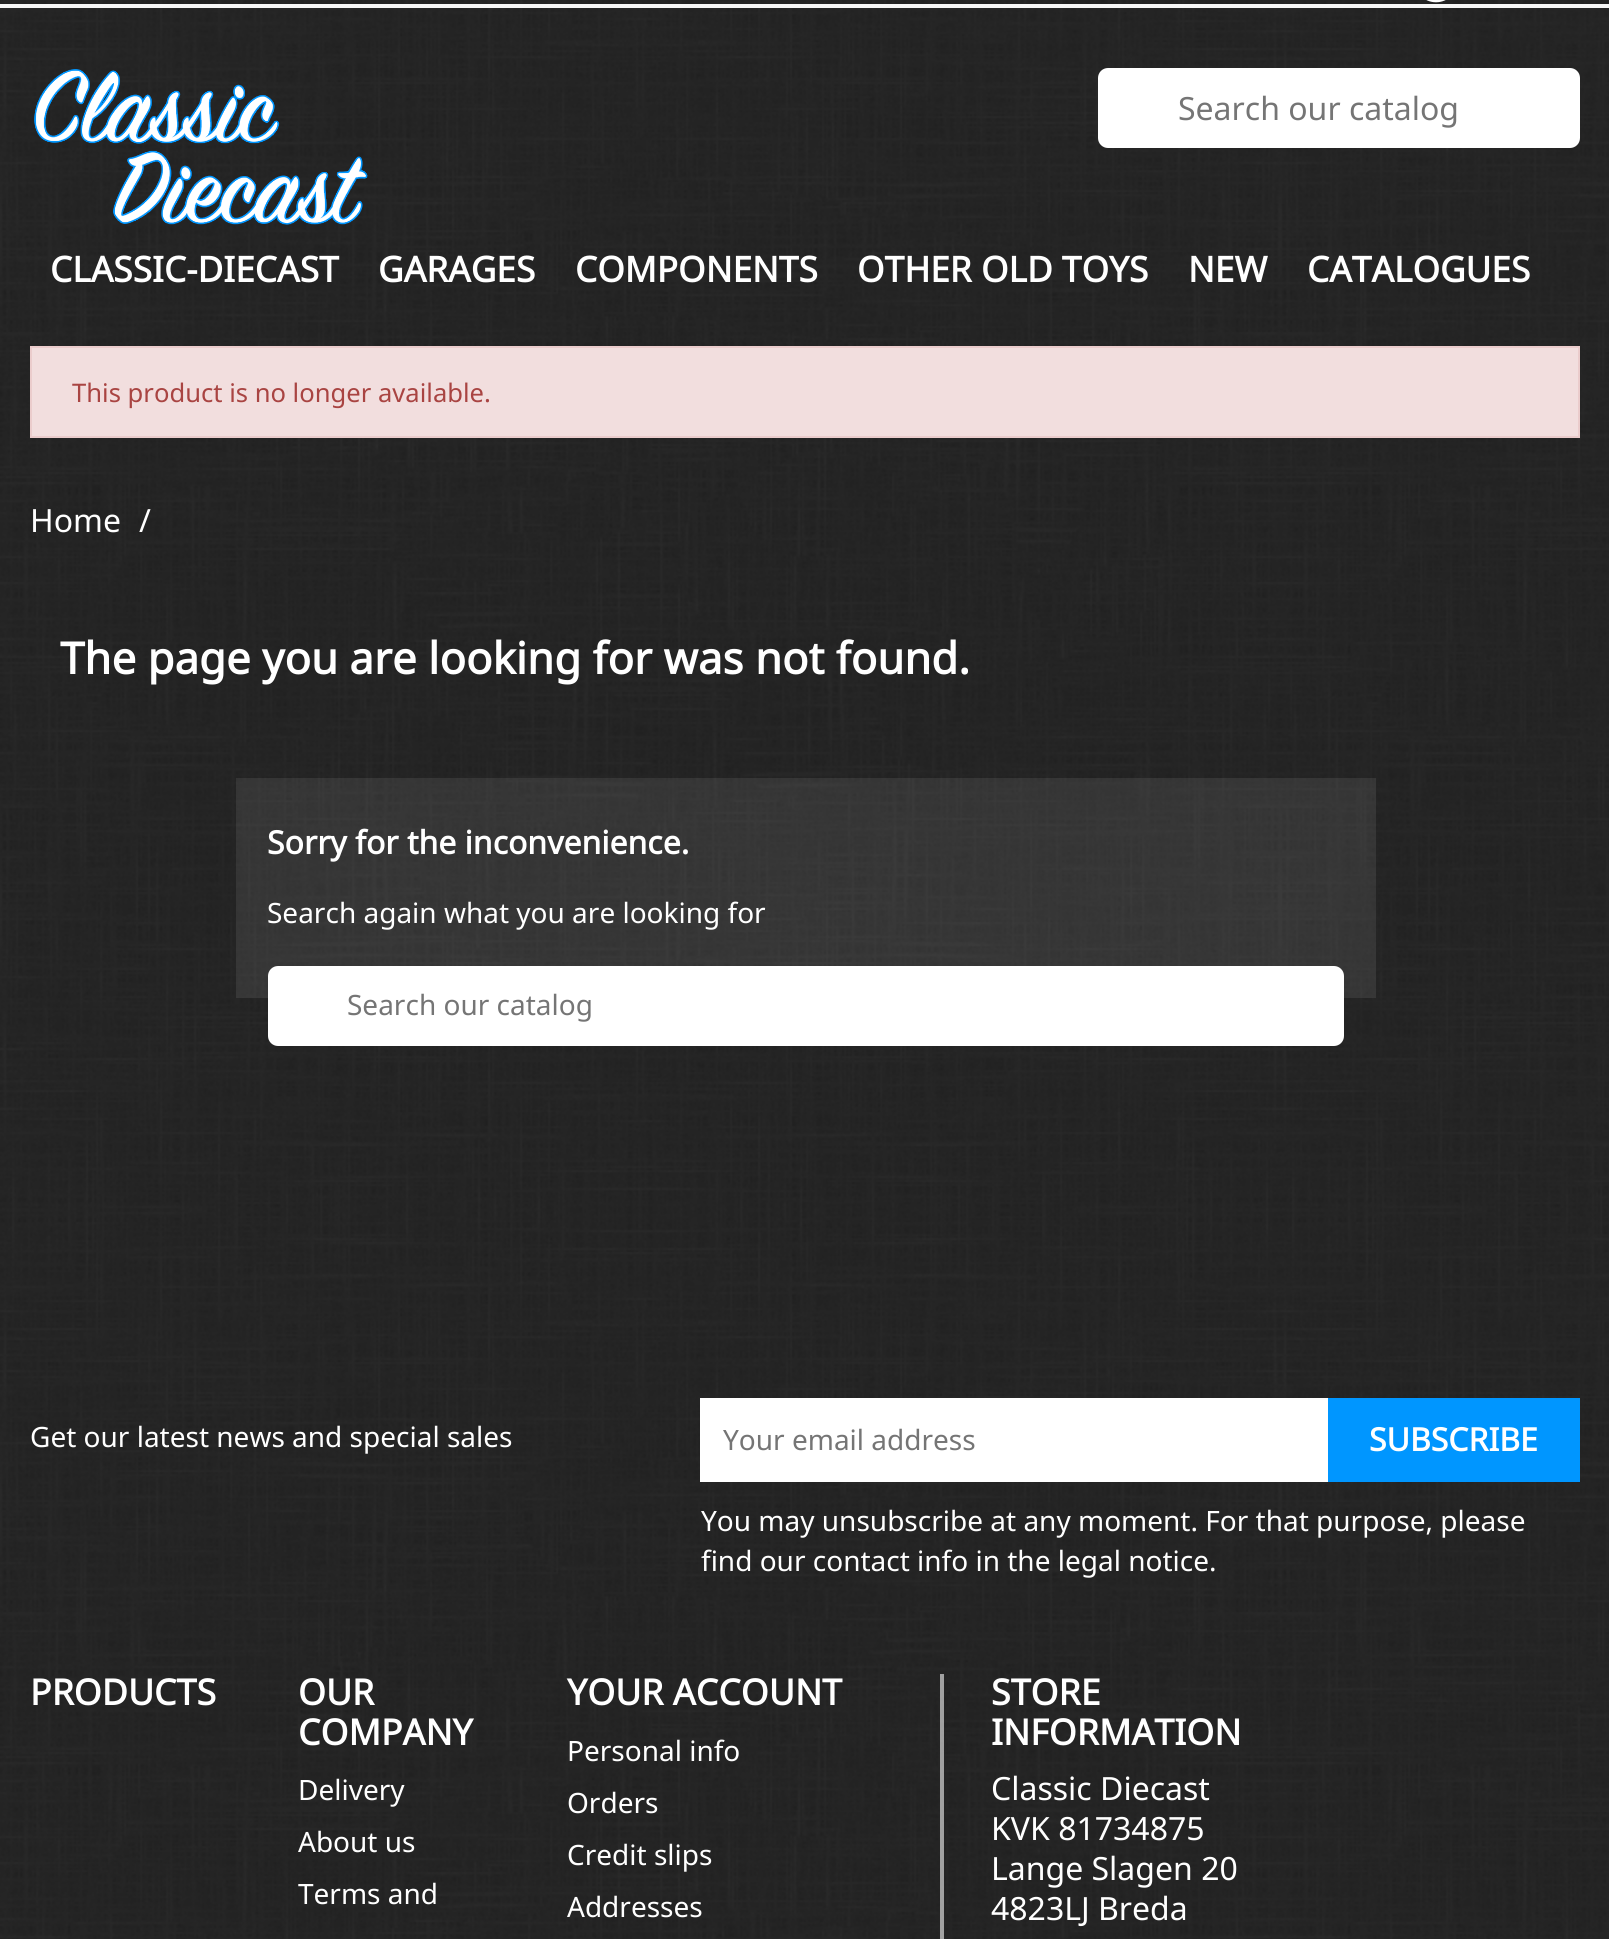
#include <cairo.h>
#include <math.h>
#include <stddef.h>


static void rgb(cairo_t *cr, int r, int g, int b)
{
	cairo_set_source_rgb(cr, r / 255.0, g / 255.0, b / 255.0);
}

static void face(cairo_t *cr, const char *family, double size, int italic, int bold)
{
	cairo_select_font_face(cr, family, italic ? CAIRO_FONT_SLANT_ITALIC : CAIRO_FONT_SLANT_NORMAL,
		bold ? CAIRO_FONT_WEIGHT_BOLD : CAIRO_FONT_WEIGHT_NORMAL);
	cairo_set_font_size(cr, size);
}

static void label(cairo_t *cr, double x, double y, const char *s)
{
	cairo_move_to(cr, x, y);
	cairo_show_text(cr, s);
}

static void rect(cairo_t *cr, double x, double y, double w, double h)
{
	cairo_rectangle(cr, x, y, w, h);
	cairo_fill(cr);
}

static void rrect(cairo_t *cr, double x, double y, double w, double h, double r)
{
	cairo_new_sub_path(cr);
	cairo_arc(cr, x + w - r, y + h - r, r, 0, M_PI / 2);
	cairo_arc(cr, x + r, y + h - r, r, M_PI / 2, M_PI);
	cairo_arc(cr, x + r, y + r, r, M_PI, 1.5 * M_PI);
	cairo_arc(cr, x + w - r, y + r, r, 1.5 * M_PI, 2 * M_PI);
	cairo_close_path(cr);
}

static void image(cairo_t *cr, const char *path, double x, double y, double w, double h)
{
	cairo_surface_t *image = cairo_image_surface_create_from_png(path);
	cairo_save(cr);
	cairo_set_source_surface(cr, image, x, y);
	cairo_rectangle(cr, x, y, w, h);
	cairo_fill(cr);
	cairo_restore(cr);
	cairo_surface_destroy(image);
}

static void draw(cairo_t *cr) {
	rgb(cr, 0, 0, 0);
	cairo_paint(cr);
	image(cr, "image0.png", 0, 0, 1609, 1939);
	rgb(cr, 247, 247, 247);
	rect(cr, 0, 4, 1609, 4);
	image(cr, "image1.png", 1426, 0, 20, 3);
	image(cr, "image2.png", 34, 69, 334, 156);
	rgb(cr, 255, 255, 255);
	rrect(cr, 1098, 68, 482, 80, 10);
	cairo_fill(cr);
	face(cr, "Noto Sans", 32, 0, 0);
	rgb(cr, 117, 117, 117);
	label(cr, 1178, 120, "Search our catalog");
	face(cr, "Noto Sans", 35.25, 0, 1);
	rgb(cr, 255, 255, 255);
	label(cr, 50, 282, "CLASSIC-DIECAST");
	label(cr, 378, 282, "GARAGES");
	label(cr, 575, 282, "COMPONENTS");
	label(cr, 857, 282, "OTHER OLD TOYS");
	label(cr, 1188, 282, "NEW");
	label(cr, 1307, 282, "CATALOGUES");
	rgb(cr, 242, 222, 222);
	cairo_rectangle(cr, 31, 347, 1548, 90);
	cairo_fill_preserve(cr);
	rgb(cr, 235, 204, 204);
	cairo_stroke(cr);
	face(cr, "Noto Sans", 25.6, 0, 0);
	rgb(cr, 169, 68, 66);
	label(cr, 72, 402, "This product is no longer available.");
	face(cr, "Noto Sans", 32, 0, 0);
	rgb(cr, 255, 255, 255);
	label(cr, 30, 532, "Home");
	label(cr, 139, 532, "/");
	face(cr, "Noto Sans", 43.8, 0, 1);
	label(cr, 60, 674, "The page you are looking for was not found.");
	cairo_set_source_rgba(cr, 0.796, 0.796, 0.796, 0.11);
	rect(cr, 236, 778, 1140, 220);
	face(cr, "Noto Sans", 32, 0, 1);
	rgb(cr, 255, 255, 255);
	label(cr, 267, 854, "Sorry for the inconvenience.");
	face(cr, "Noto Sans", 28, 0, 0);
	label(cr, 267, 923, "Search again what you are looking for");
	rrect(cr, 268, 966, 1076, 80, 10);
	cairo_fill(cr);
	rgb(cr, 117, 117, 117);
	label(cr, 347, 1015, "Search our catalog");
	rgb(cr, 255, 255, 255);
	label(cr, 30, 1447, "Get our latest news and special sales");
	rect(cr, 700, 1398, 628, 84);
	rgb(cr, 117, 117, 117);
	label(cr, 723, 1450, "Your email address");
	rgb(cr, 0, 150, 255);
	rect(cr, 1328, 1398, 252, 84);
	face(cr, "Noto Sans", 32, 0, 1);
	rgb(cr, 255, 255, 255);
	label(cr, 1369, 1451, "SUBSCRIBE");
	face(cr, "Noto Sans", 28, 0, 0);
	label(cr, 701, 1531, "You may unsubscribe at any moment. For that purpose, please");
	label(cr, 701, 1571, "find our contact info in the legal notice.");
	face(cr, "Noto Sans", 35.75, 0, 1);
	label(cr, 30, 1705, "PRODUCTS");
	label(cr, 298, 1705, "OUR");
	label(cr, 298, 1745, "COMPANY");
	face(cr, "Noto Sans", 28, 0, 0);
	label(cr, 298, 1800, "Delivery");
	label(cr, 298, 1852, "About us");
	label(cr, 298, 1904, "Terms and");
	face(cr, "Noto Sans", 35.75, 0, 1);
	label(cr, 567, 1705, "YOUR ACCOUNT");
	face(cr, "Noto Sans", 28, 0, 0);
	label(cr, 567, 1761, "Personal info");
	label(cr, 567, 1813, "Orders");
	label(cr, 567, 1865, "Credit slips");
	label(cr, 567, 1917, "Addresses");
	cairo_set_source_rgba(cr, 1, 1, 1, 0.57);
	rect(cr, 940, 1674, 4, 265);
	face(cr, "Noto Sans", 35.75, 0, 1);
	rgb(cr, 255, 255, 255);
	label(cr, 991, 1705, "STORE");
	label(cr, 991, 1745, "INFORMATION");
	face(cr, "Noto Sans", 32, 0, 0);
	label(cr, 991, 1800, "Classic Diecast");
	label(cr, 991, 1840, "KVK 81734875");
	label(cr, 991, 1880, "Lange Slagen 20");
	label(cr, 991, 1920, "4823LJ Breda");
}

int main(void) {
	cairo_surface_t *surface = cairo_image_surface_create(CAIRO_FORMAT_RGB24, 1609, 1939);
	cairo_t *cr = cairo_create(surface);
	cairo_font_options_t *options = cairo_font_options_create();
	cairo_font_options_set_hint_metrics(options, CAIRO_HINT_METRICS_OFF);
	cairo_font_options_set_hint_style(options, CAIRO_HINT_STYLE_NONE);
	cairo_set_font_options(cr, options);
	cairo_set_miter_limit(cr, 4);
	draw(cr);
	cairo_surface_write_to_png(surface, "render.png");
	cairo_font_options_destroy(options);
	cairo_destroy(cr);
	cairo_surface_destroy(surface);
	return 0;
}
